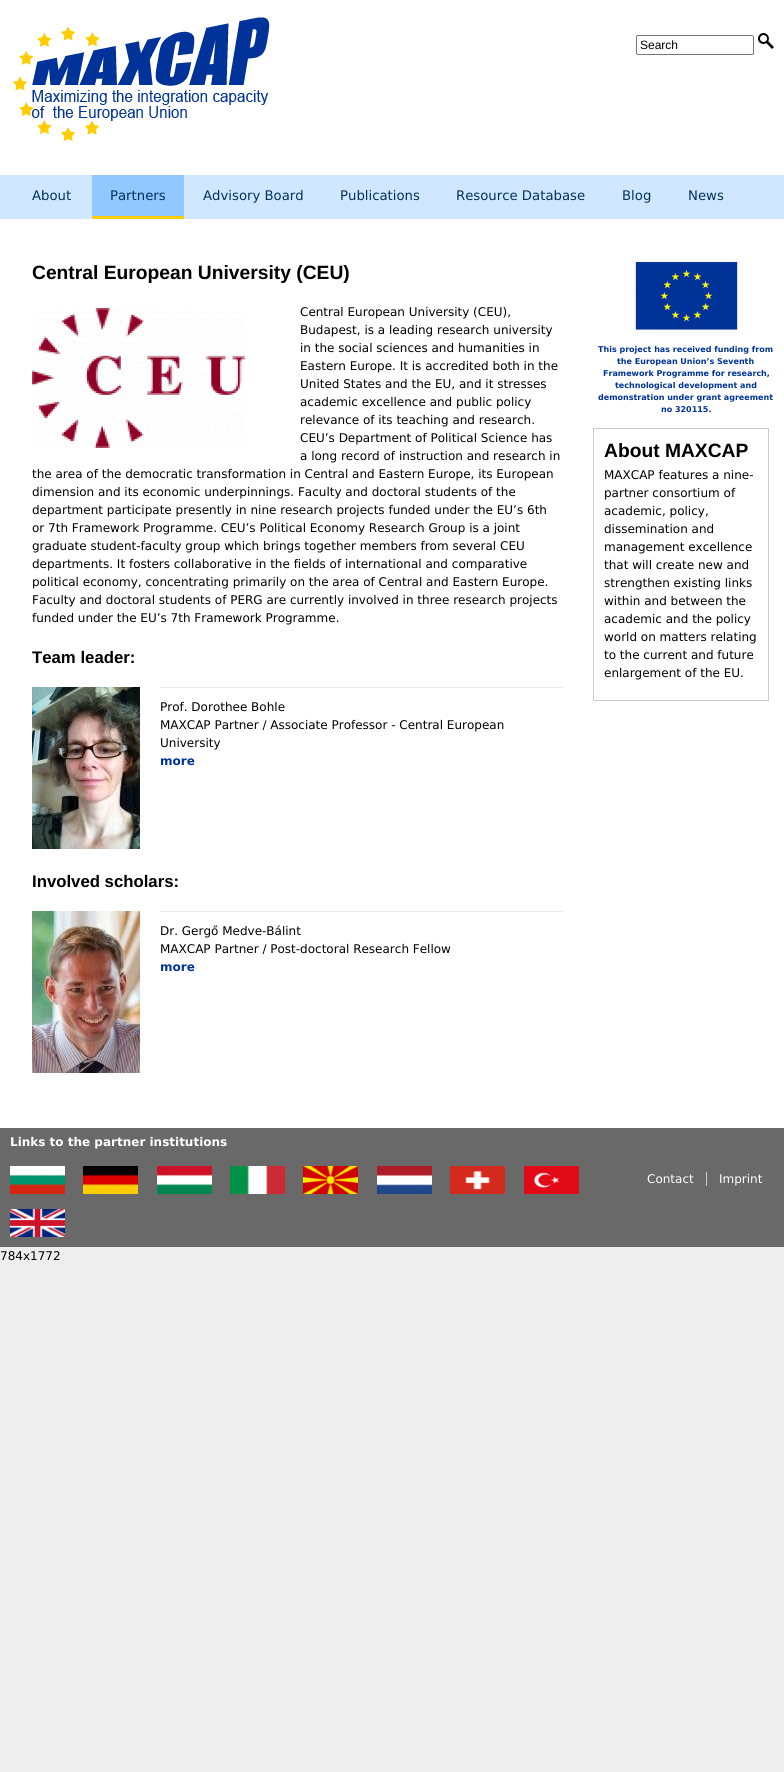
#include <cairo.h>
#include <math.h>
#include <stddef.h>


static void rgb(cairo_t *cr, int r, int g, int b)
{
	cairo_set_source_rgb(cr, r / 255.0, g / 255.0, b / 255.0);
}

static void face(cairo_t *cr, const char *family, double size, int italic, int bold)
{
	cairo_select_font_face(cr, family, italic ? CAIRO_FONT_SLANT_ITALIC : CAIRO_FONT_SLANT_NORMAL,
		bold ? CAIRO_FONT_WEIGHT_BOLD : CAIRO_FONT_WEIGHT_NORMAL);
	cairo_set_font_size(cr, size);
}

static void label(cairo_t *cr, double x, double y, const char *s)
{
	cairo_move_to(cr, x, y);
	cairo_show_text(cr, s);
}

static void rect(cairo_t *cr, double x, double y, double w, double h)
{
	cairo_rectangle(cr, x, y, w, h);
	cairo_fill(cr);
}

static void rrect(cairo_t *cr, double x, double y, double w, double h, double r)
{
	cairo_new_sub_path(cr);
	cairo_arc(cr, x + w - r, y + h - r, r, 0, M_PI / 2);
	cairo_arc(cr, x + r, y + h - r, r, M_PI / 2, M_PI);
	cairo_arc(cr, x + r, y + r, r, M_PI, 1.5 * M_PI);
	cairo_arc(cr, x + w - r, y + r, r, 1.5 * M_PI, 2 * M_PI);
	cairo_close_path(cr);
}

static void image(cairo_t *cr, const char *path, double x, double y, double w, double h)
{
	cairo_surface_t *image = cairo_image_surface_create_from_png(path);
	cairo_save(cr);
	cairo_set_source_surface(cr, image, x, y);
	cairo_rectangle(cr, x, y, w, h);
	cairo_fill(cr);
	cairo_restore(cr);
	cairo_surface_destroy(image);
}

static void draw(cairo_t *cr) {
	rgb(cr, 238, 238, 238);
	cairo_paint(cr);
	rgb(cr, 255, 255, 255);
	rect(cr, 0, 0, 784, 1128);
	image(cr, "image0.png", 12, 17, 258, 125);
	rrect(cr, 636.5, 35.5, 117, 19, 1.5);
	rgb(cr, 118, 118, 118);
	cairo_set_line_width(cr, 1);
	cairo_stroke(cr);
	face(cr, "Liberation Sans", 12, 0, 0);
	rgb(cr, 0, 0, 0);
	label(cr, 640, 49, "Search");
	image(cr, "image1.png", 758, 33, 16, 16);
	rgb(cr, 208, 232, 255);
	rect(cr, 742, 175, 42, 44);
	rect(cr, 0, 175, 92, 44);
	face(cr, "DejaVu Sans", 13.25, 0, 0);
	rgb(cr, 0, 48, 95);
	label(cr, 32, 200, "About");
	rgb(cr, 145, 200, 255);
	rect(cr, 92, 175, 92, 41);
	rgb(cr, 255, 204, 0);
	rect(cr, 92, 216, 92, 3);
	rgb(cr, 0, 48, 95);
	label(cr, 110, 200, "Partners");
	rgb(cr, 208, 232, 255);
	rect(cr, 184, 175, 558, 44);
	rgb(cr, 0, 48, 95);
	label(cr, 203, 200, "Advisory Board");
	label(cr, 340, 200, "Publications");
	label(cr, 456, 200, "Resource Database");
	label(cr, 622, 200, "Blog");
	label(cr, 688, 200, "News");
	face(cr, "Liberation Sans", 19.25, 0, 1);
	rgb(cr, 0, 0, 0);
	label(cr, 32, 279, "Central European University (CEU)");
	face(cr, "DejaVu Sans", 12, 0, 0);
	label(cr, 300, 316, "Central European University (CEU),");
	label(cr, 300, 334, "Budapest, is a leading research university");
	label(cr, 300, 352, "in the social sciences and humanities in");
	label(cr, 300, 370, "Eastern Europe. It is accredited both in the");
	label(cr, 300, 388, "United States and the EU, and it stresses");
	label(cr, 300, 406, "academic excellence and public policy");
	label(cr, 300, 424, "relevance of its teaching and research.");
	label(cr, 300, 442, "CEU’s Department of Political Science has");
	label(cr, 300, 460, "a long record of instruction and research in");
	label(cr, 32, 478, "the area of the democratic transformation in Central and Eastern Europe, its European");
	label(cr, 32, 496, "dimension and its economic underpinnings. Faculty and doctoral students of the");
	label(cr, 32, 514, "department participate presently in nine research projects funded under the EU’s 6th");
	label(cr, 32, 532, "or 7th Framework Programme. CEU’s Political Economy Research Group is a joint");
	label(cr, 32, 550, "graduate student-faculty group which brings together members from several CEU");
	label(cr, 32, 568, "departments. It fosters collaborative in the fields of international and comparative");
	label(cr, 32, 586, "political economy, concentrating primarily on the area of Central and Eastern Europe.");
	label(cr, 32, 604, "Faculty and doctoral students of PERG are currently involved in three research projects");
	label(cr, 32, 622, "funded under the EU’s 7th Framework Programme.");
	image(cr, "image2.png", 32, 308, 213, 140);
	face(cr, "Liberation Sans", 16.75, 0, 1);
	label(cr, 32, 663, "Team leader:");
	rgb(cr, 238, 238, 238);
	rect(cr, 160, 687, 403, 1);
	image(cr, "image3.png", 32, 687, 128, 162);
	face(cr, "DejaVu Sans", 12, 0, 0);
	rgb(cr, 0, 0, 0);
	label(cr, 160, 711, "Prof. Dorothee Bohle");
	label(cr, 160, 729, "MAXCAP Partner / Associate Professor - Central European");
	label(cr, 160, 747, "University");
	face(cr, "DejaVu Sans", 12, 0, 1);
	rgb(cr, 0, 51, 153);
	label(cr, 160, 765, "more");
	face(cr, "Liberation Sans", 16.75, 0, 1);
	rgb(cr, 0, 0, 0);
	label(cr, 32, 887, "Involved scholars:");
	rgb(cr, 238, 238, 238);
	rect(cr, 160, 911, 403, 1);
	image(cr, "image4.png", 32, 911, 128, 162);
	face(cr, "DejaVu Sans", 12, 0, 0);
	rgb(cr, 0, 0, 0);
	label(cr, 160, 935, "Dr. Gergő Medve-Bálint");
	label(cr, 160, 953, "MAXCAP Partner / Post-doctoral Research Fellow");
	face(cr, "DejaVu Sans", 12, 0, 1);
	rgb(cr, 0, 51, 153);
	label(cr, 160, 971, "more");
	image(cr, "image5.png", 634, 261, 105, 69);
	face(cr, "DejaVu Sans", 8, 0, 1);
	label(cr, 598, 352, "This project has received funding from");
	label(cr, 617, 364, "the European Union’s Seventh");
	label(cr, 603, 376, "Framework Programme for research,");
	label(cr, 615, 388, "technological development and");
	label(cr, 598, 400, "demonstration under grant agreement");
	label(cr, 661, 412, "no 320115.");
	cairo_rectangle(cr, 593.5, 428.5, 175, 272);
	rgb(cr, 204, 204, 204);
	cairo_stroke(cr);
	face(cr, "Liberation Sans", 19.25, 0, 1);
	rgb(cr, 0, 0, 0);
	label(cr, 604, 457, "About MAXCAP");
	face(cr, "DejaVu Sans", 12, 0, 0);
	label(cr, 604, 479, "MAXCAP features a nine-");
	label(cr, 604, 497, "partner consortium of");
	label(cr, 604, 515, "academic, policy,");
	label(cr, 604, 533, "dissemination and");
	label(cr, 604, 551, "management excellence");
	label(cr, 604, 569, "that will create new and");
	label(cr, 604, 587, "strengthen existing links");
	label(cr, 604, 605, "within and between the");
	label(cr, 604, 623, "academic and the policy");
	label(cr, 604, 641, "world on matters relating");
	label(cr, 604, 659, "to the current and future");
	label(cr, 604, 677, "enlargement of the EU.");
	rgb(cr, 105, 105, 105);
	rect(cr, 0, 1128, 784, 119);
	face(cr, "DejaVu Sans", 12, 0, 1);
	rgb(cr, 255, 255, 255);
	label(cr, 10, 1146, "Links to the partner institutions");
	image(cr, "image6.png", 10, 1166, 55, 28);
	image(cr, "image7.png", 83, 1166, 55, 28);
	image(cr, "image8.png", 157, 1166, 55, 28);
	image(cr, "image9.png", 230, 1166, 55, 28);
	image(cr, "image10.png", 303, 1166, 55, 28);
	image(cr, "image11.png", 377, 1166, 55, 28);
	image(cr, "image12.png", 450, 1166, 55, 28);
	image(cr, "image13.png", 524, 1166, 55, 28);
	image(cr, "image14.png", 10, 1209, 55, 28);
	face(cr, "DejaVu Sans", 12, 0, 0);
	label(cr, 647, 1183, "Contact");
	rgb(cr, 204, 204, 204);
	rect(cr, 706, 1172, 1, 14);
	rgb(cr, 255, 255, 255);
	label(cr, 719, 1183, "Imprint");
	rgb(cr, 0, 0, 0);
	label(cr, 0, 1260, "784x1772");
}

int main(void) {
	cairo_surface_t *surface = cairo_image_surface_create(CAIRO_FORMAT_RGB24, 784, 1772);
	cairo_t *cr = cairo_create(surface);
	cairo_font_options_t *options = cairo_font_options_create();
	cairo_font_options_set_hint_metrics(options, CAIRO_HINT_METRICS_OFF);
	cairo_font_options_set_hint_style(options, CAIRO_HINT_STYLE_NONE);
	cairo_set_font_options(cr, options);
	cairo_set_miter_limit(cr, 4);
	draw(cr);
	cairo_surface_write_to_png(surface, "render.png");
	cairo_font_options_destroy(options);
	cairo_destroy(cr);
	cairo_surface_destroy(surface);
	return 0;
}
